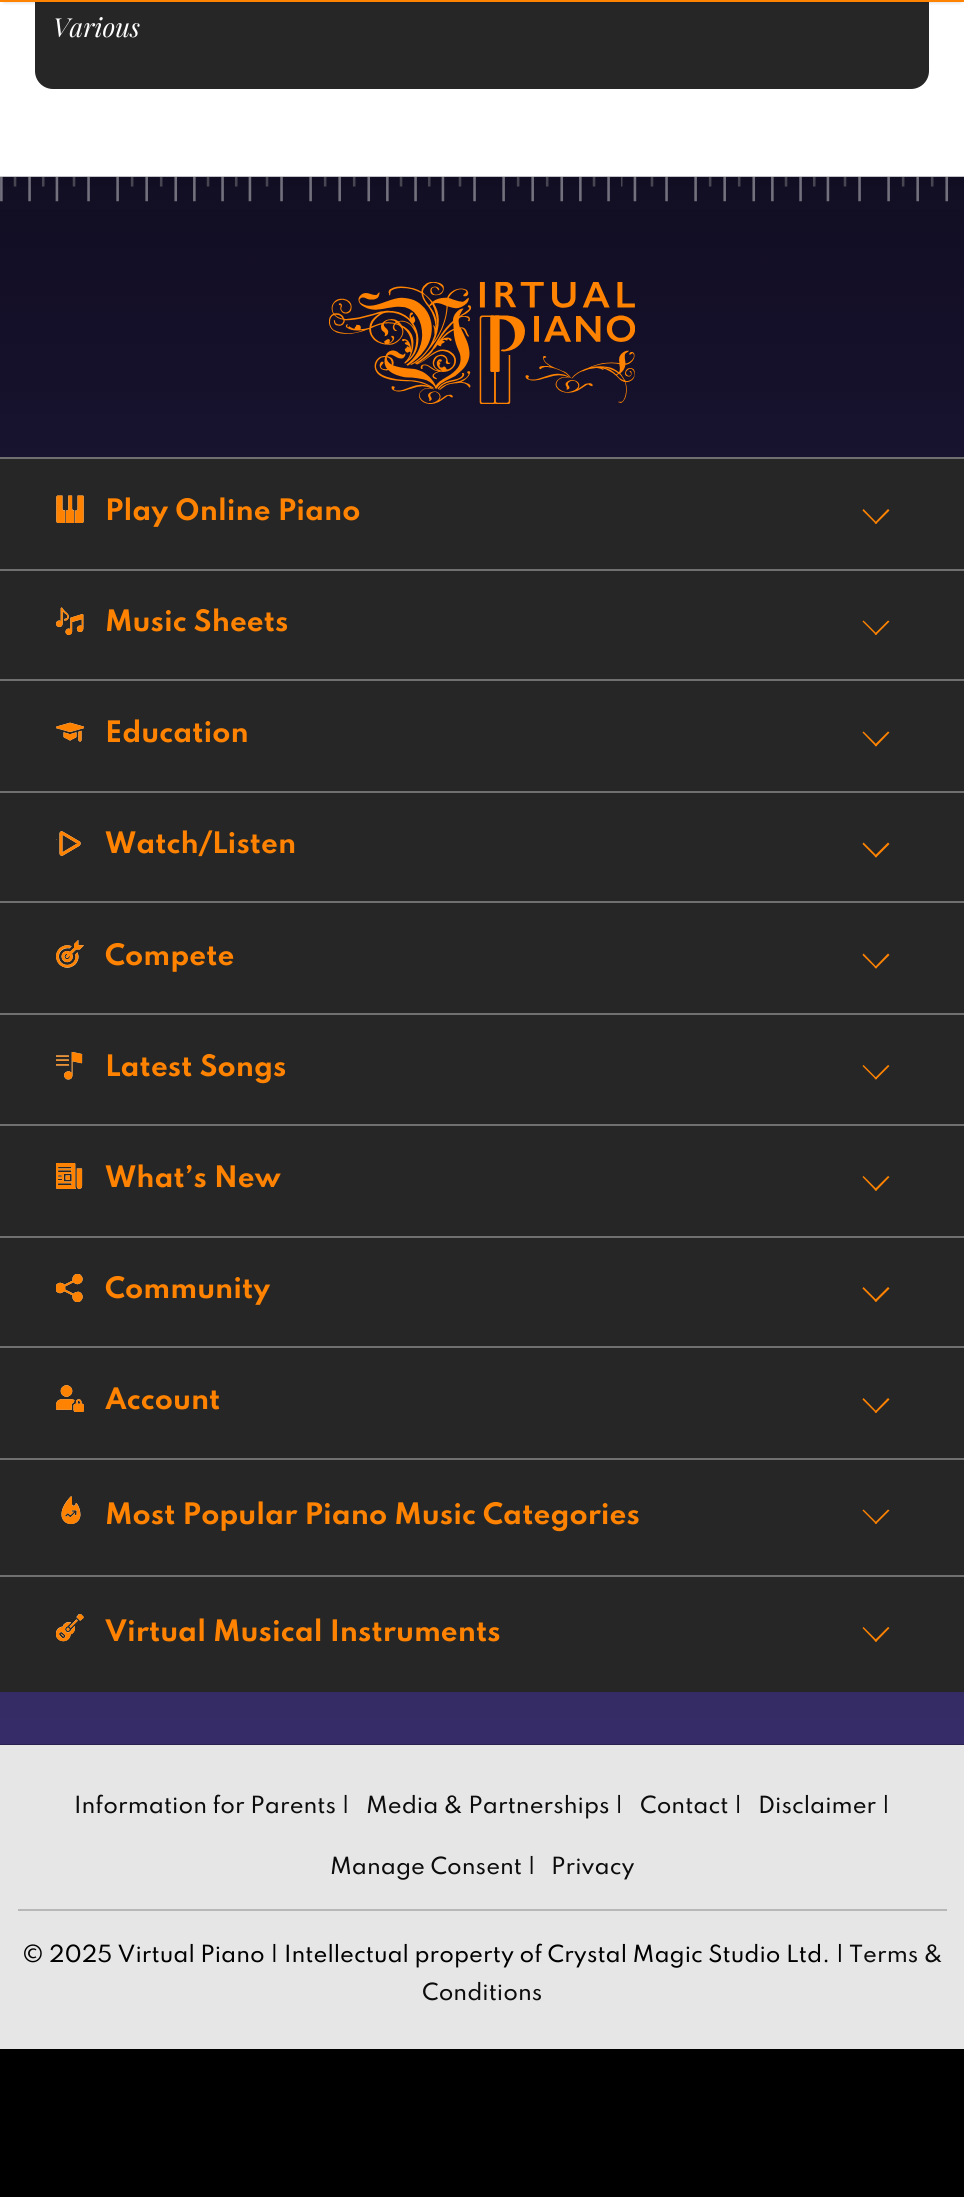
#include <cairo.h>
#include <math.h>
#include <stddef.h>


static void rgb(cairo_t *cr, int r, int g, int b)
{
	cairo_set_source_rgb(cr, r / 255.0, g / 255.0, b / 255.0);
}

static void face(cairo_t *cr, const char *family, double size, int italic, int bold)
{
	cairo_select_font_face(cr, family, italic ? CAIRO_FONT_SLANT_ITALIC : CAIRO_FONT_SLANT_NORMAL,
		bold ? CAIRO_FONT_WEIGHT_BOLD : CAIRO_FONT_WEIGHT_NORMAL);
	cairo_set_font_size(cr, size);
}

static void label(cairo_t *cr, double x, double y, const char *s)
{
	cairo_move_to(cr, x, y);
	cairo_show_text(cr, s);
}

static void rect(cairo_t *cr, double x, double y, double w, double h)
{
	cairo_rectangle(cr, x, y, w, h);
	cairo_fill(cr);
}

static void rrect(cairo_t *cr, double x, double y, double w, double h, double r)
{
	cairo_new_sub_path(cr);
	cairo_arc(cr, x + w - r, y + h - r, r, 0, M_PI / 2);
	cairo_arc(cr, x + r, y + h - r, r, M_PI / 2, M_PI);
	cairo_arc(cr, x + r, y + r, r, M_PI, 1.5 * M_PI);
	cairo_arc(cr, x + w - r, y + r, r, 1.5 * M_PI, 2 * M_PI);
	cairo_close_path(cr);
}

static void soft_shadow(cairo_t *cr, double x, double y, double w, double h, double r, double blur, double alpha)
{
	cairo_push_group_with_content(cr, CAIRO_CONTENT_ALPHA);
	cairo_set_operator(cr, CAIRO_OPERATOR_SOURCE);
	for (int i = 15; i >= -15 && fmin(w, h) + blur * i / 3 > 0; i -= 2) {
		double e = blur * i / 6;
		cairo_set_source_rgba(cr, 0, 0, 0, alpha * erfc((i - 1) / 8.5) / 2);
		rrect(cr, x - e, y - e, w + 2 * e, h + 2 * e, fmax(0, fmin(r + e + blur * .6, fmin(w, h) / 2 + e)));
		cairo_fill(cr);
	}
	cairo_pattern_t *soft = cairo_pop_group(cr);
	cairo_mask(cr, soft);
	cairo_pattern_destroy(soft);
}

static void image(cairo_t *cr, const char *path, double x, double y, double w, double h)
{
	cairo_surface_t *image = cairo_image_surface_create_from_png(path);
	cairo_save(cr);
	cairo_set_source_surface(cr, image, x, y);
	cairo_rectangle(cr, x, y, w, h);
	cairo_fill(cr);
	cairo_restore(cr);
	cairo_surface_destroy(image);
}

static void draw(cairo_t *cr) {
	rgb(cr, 255, 255, 255);
	cairo_paint(cr);
	rgb(cr, 38, 38, 38);
	rrect(cr, 35, -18, 894, 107, 18);
	cairo_fill(cr);
	rgb(cr, 0, 0, 0);
	soft_shadow(cr, 4, -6, 957, 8, 0, 2, 0.2);
	rgb(cr, 255, 131, 0);
	rect(cr, 0, 0, 964, 2);
	face(cr, "Playfair Display", 26.25, 1, 0);
	rgb(cr, 255, 255, 255);
	label(cr, 53, 37, "Various");
	rgb(cr, 0, 0, 0);
	rect(cr, 0, 209, 964, 1988);
	image(cr, "image0.png", 0, 176, 964, 1569);
	image(cr, "image1.png", 329, 282, 306, 122);
	rgb(cr, 38, 38, 38);
	rect(cr, 0, 459, 964, 110);
	image(cr, "image2.png", 56, 495, 28, 28);
	rgb(cr, 112, 112, 112);
	rect(cr, 0, 457, 964, 2);
	image(cr, "image3.png", 56, 495, 28, 28);
	face(cr, "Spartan", 26.25, 0, 1);
	rgb(cr, 255, 131, 0);
	label(cr, 105, 520, "Play Online Piano");
	cairo_new_path(cr);
	cairo_move_to(cr, 876, 524);
	cairo_line_to(cr, 862.5, 510.5);
	cairo_line_to(cr, 863.5, 509);
	cairo_line_to(cr, 877, 523);
	cairo_close_path(cr);
	cairo_fill(cr);
	cairo_new_path(cr);
	cairo_move_to(cr, 876, 524);
	cairo_line_to(cr, 874.5, 523);
	cairo_line_to(cr, 888, 509);
	cairo_line_to(cr, 889.5, 510.5);
	cairo_close_path(cr);
	cairo_fill(cr);
	rgb(cr, 38, 38, 38);
	rect(cr, 0, 571, 964, 108);
	image(cr, "image4.png", 56, 607, 28, 28);
	rgb(cr, 112, 112, 112);
	rect(cr, 0, 569, 964, 2);
	image(cr, "image5.png", 56, 607, 28, 28);
	rgb(cr, 255, 131, 0);
	label(cr, 105, 631, "Music Sheets");
	cairo_new_path(cr);
	cairo_move_to(cr, 876, 635);
	cairo_line_to(cr, 862.5, 621.5);
	cairo_line_to(cr, 863.5, 620.5);
	cairo_line_to(cr, 877, 634);
	cairo_close_path(cr);
	cairo_fill(cr);
	cairo_new_path(cr);
	cairo_move_to(cr, 876, 635);
	cairo_line_to(cr, 874.5, 634);
	cairo_line_to(cr, 888, 620.5);
	cairo_line_to(cr, 889.5, 621.5);
	cairo_close_path(cr);
	cairo_fill(cr);
	rgb(cr, 38, 38, 38);
	rect(cr, 0, 681, 964, 110);
	image(cr, "image6.png", 56, 722, 28, 20);
	rgb(cr, 112, 112, 112);
	rect(cr, 0, 679, 964, 2);
	image(cr, "image7.png", 56, 722, 28, 20);
	rgb(cr, 255, 131, 0);
	label(cr, 105, 742, "Education");
	cairo_new_path(cr);
	cairo_move_to(cr, 876, 746.5);
	cairo_line_to(cr, 862.5, 732.5);
	cairo_line_to(cr, 863.5, 731.5);
	cairo_line_to(cr, 877, 745);
	cairo_close_path(cr);
	cairo_fill(cr);
	cairo_new_path(cr);
	cairo_move_to(cr, 876, 746.5);
	cairo_line_to(cr, 874.5, 745);
	cairo_line_to(cr, 888, 731.5);
	cairo_line_to(cr, 889.5, 732.5);
	cairo_close_path(cr);
	cairo_fill(cr);
	rgb(cr, 38, 38, 38);
	rect(cr, 0, 793, 964, 108);
	image(cr, "image8.png", 56, 831, 25, 25);
	rgb(cr, 112, 112, 112);
	rect(cr, 0, 791, 964, 2);
	image(cr, "image9.png", 56, 831, 25, 25);
	rgb(cr, 255, 131, 0);
	label(cr, 105, 853, "Watch/Listen");
	cairo_new_path(cr);
	cairo_move_to(cr, 876, 857.5);
	cairo_line_to(cr, 862.5, 844);
	cairo_line_to(cr, 863.5, 842.5);
	cairo_line_to(cr, 877, 856);
	cairo_close_path(cr);
	cairo_fill(cr);
	cairo_new_path(cr);
	cairo_move_to(cr, 876, 857.5);
	cairo_line_to(cr, 874.5, 856);
	cairo_line_to(cr, 888, 842.5);
	cairo_line_to(cr, 889.5, 844);
	cairo_close_path(cr);
	cairo_fill(cr);
	rgb(cr, 38, 38, 38);
	rect(cr, 0, 903, 964, 110);
	image(cr, "image10.png", 56, 940, 28, 28);
	rgb(cr, 112, 112, 112);
	rect(cr, 0, 901, 964, 2);
	image(cr, "image11.png", 56, 940, 28, 28);
	rgb(cr, 255, 131, 0);
	label(cr, 105, 965, "Compete");
	cairo_new_path(cr);
	cairo_move_to(cr, 876, 968.5);
	cairo_line_to(cr, 862.5, 955);
	cairo_line_to(cr, 863.5, 953.5);
	cairo_line_to(cr, 877, 967.5);
	cairo_close_path(cr);
	cairo_fill(cr);
	cairo_new_path(cr);
	cairo_move_to(cr, 876, 968.5);
	cairo_line_to(cr, 874.5, 967.5);
	cairo_line_to(cr, 888, 953.5);
	cairo_line_to(cr, 889.5, 955);
	cairo_close_path(cr);
	cairo_fill(cr);
	rgb(cr, 38, 38, 38);
	rect(cr, 0, 1015, 964, 109);
	image(cr, "image12.png", 56, 1052, 27, 28);
	rgb(cr, 112, 112, 112);
	rect(cr, 0, 1013, 964, 2);
	image(cr, "image13.png", 56, 1052, 27, 28);
	rgb(cr, 255, 131, 0);
	label(cr, 105, 1076, "Latest Songs");
	cairo_new_path(cr);
	cairo_move_to(cr, 876, 1079.5);
	cairo_line_to(cr, 862.5, 1066);
	cairo_line_to(cr, 863.5, 1065);
	cairo_line_to(cr, 877, 1078.5);
	cairo_close_path(cr);
	cairo_fill(cr);
	cairo_new_path(cr);
	cairo_move_to(cr, 876, 1079.5);
	cairo_line_to(cr, 874.5, 1078.5);
	cairo_line_to(cr, 888, 1065);
	cairo_line_to(cr, 889.5, 1066);
	cairo_close_path(cr);
	cairo_fill(cr);
	rgb(cr, 38, 38, 38);
	rect(cr, 0, 1126, 964, 110);
	image(cr, "image14.png", 56, 1163, 27, 26);
	rgb(cr, 112, 112, 112);
	rect(cr, 0, 1124, 964, 2);
	image(cr, "image15.png", 56, 1163, 27, 26);
	rgb(cr, 255, 131, 0);
	label(cr, 105, 1187, "What’s New");
	cairo_new_path(cr);
	cairo_move_to(cr, 876, 1191);
	cairo_line_to(cr, 862.5, 1177);
	cairo_line_to(cr, 863.5, 1176);
	cairo_line_to(cr, 877, 1189.5);
	cairo_close_path(cr);
	cairo_fill(cr);
	cairo_new_path(cr);
	cairo_move_to(cr, 876, 1191);
	cairo_line_to(cr, 874.5, 1189.5);
	cairo_line_to(cr, 888, 1176);
	cairo_line_to(cr, 889.5, 1177);
	cairo_close_path(cr);
	cairo_fill(cr);
	rgb(cr, 38, 38, 38);
	rect(cr, 0, 1238, 964, 108);
	image(cr, "image16.png", 56, 1274, 27, 28);
	rgb(cr, 112, 112, 112);
	rect(cr, 0, 1236, 964, 2);
	image(cr, "image17.png", 56, 1274, 27, 28);
	rgb(cr, 255, 131, 0);
	label(cr, 105, 1298, "Community");
	cairo_new_path(cr);
	cairo_move_to(cr, 876, 1302);
	cairo_line_to(cr, 862.5, 1288.5);
	cairo_line_to(cr, 863.5, 1287);
	cairo_line_to(cr, 877, 1300.5);
	cairo_close_path(cr);
	cairo_fill(cr);
	cairo_new_path(cr);
	cairo_move_to(cr, 876, 1302);
	cairo_line_to(cr, 874.5, 1300.5);
	cairo_line_to(cr, 888, 1287);
	cairo_line_to(cr, 889.5, 1288.5);
	cairo_close_path(cr);
	cairo_fill(cr);
	rgb(cr, 38, 38, 38);
	rect(cr, 0, 1348, 964, 110);
	image(cr, "image18.png", 56, 1385, 28, 27);
	rgb(cr, 112, 112, 112);
	rect(cr, 0, 1346, 964, 2);
	image(cr, "image19.png", 56, 1385, 28, 27);
	rgb(cr, 255, 131, 0);
	label(cr, 105, 1409, "Account");
	cairo_new_path(cr);
	cairo_move_to(cr, 876, 1413);
	cairo_line_to(cr, 862.5, 1399.5);
	cairo_line_to(cr, 863.5, 1398);
	cairo_line_to(cr, 877, 1412);
	cairo_close_path(cr);
	cairo_fill(cr);
	cairo_new_path(cr);
	cairo_move_to(cr, 876, 1413);
	cairo_line_to(cr, 874.5, 1412);
	cairo_line_to(cr, 888, 1398);
	cairo_line_to(cr, 889.5, 1399.5);
	cairo_close_path(cr);
	cairo_fill(cr);
	rgb(cr, 38, 38, 38);
	rect(cr, 0, 1460, 964, 115);
	image(cr, "image20.png", 61, 1496, 20, 28);
	rgb(cr, 112, 112, 112);
	rect(cr, 0, 1458, 964, 2);
	image(cr, "image21.png", 61, 1496, 20, 28);
	rgb(cr, 255, 131, 0);
	label(cr, 105, 1524, "Most Popular Piano Music Categories");
	cairo_new_path(cr);
	cairo_move_to(cr, 876, 1524);
	cairo_line_to(cr, 862.5, 1510.5);
	cairo_line_to(cr, 863.5, 1509.5);
	cairo_line_to(cr, 877, 1523);
	cairo_close_path(cr);
	cairo_fill(cr);
	cairo_new_path(cr);
	cairo_move_to(cr, 876, 1524);
	cairo_line_to(cr, 874.5, 1523);
	cairo_line_to(cr, 888, 1509.5);
	cairo_line_to(cr, 889.5, 1510.5);
	cairo_close_path(cr);
	cairo_fill(cr);
	rgb(cr, 38, 38, 38);
	rect(cr, 0, 1577, 964, 115);
	image(cr, "image22.png", 56, 1614, 28, 28);
	rgb(cr, 112, 112, 112);
	rect(cr, 0, 1575, 964, 2);
	image(cr, "image23.png", 56, 1614, 28, 28);
	rgb(cr, 255, 131, 0);
	label(cr, 105, 1641, "Virtual Musical Instruments");
	cairo_new_path(cr);
	cairo_move_to(cr, 876, 1642);
	cairo_line_to(cr, 862.5, 1628);
	cairo_line_to(cr, 863.5, 1627);
	cairo_line_to(cr, 877, 1640.5);
	cairo_close_path(cr);
	cairo_fill(cr);
	cairo_new_path(cr);
	cairo_move_to(cr, 876, 1642);
	cairo_line_to(cr, 874.5, 1640.5);
	cairo_line_to(cr, 888, 1627);
	cairo_line_to(cr, 889.5, 1628);
	cairo_close_path(cr);
	cairo_fill(cr);
	rgb(cr, 230, 230, 230);
	rect(cr, 0, 1745, 964, 304);
	rgb(cr, 183, 183, 183);
	rect(cr, 18, 1909, 929, 2);
	face(cr, "Spartan Medium", 21, 0, 0);
	rgb(cr, 12, 12, 12);
	label(cr, 74, 1813, "Information for Parents |");
	label(cr, 366, 1813, "Media & Partnerships |");
	label(cr, 640, 1813, "Contact |");
	label(cr, 758, 1813, "Disclaimer |");
	label(cr, 330, 1874, "Manage Consent |");
	label(cr, 551, 1874, "Privacy");
	rgb(cr, 0, 0, 0);
	label(cr, 22, 1962, "© 2025 Virtual Piano | Intellectual property of Crystal Magic Studio Ltd. |");
	rgb(cr, 12, 12, 12);
	label(cr, 849, 1962, "Terms &");
	label(cr, 422, 2000, "Conditions");
}

int main(void) {
	cairo_surface_t *surface = cairo_image_surface_create(CAIRO_FORMAT_RGB24, 964, 2197);
	cairo_t *cr = cairo_create(surface);
	cairo_font_options_t *options = cairo_font_options_create();
	cairo_font_options_set_hint_metrics(options, CAIRO_HINT_METRICS_OFF);
	cairo_font_options_set_hint_style(options, CAIRO_HINT_STYLE_NONE);
	cairo_set_font_options(cr, options);
	cairo_set_miter_limit(cr, 4);
	draw(cr);
	cairo_surface_write_to_png(surface, "render.png");
	cairo_font_options_destroy(options);
	cairo_destroy(cr);
	cairo_surface_destroy(surface);
	return 0;
}
